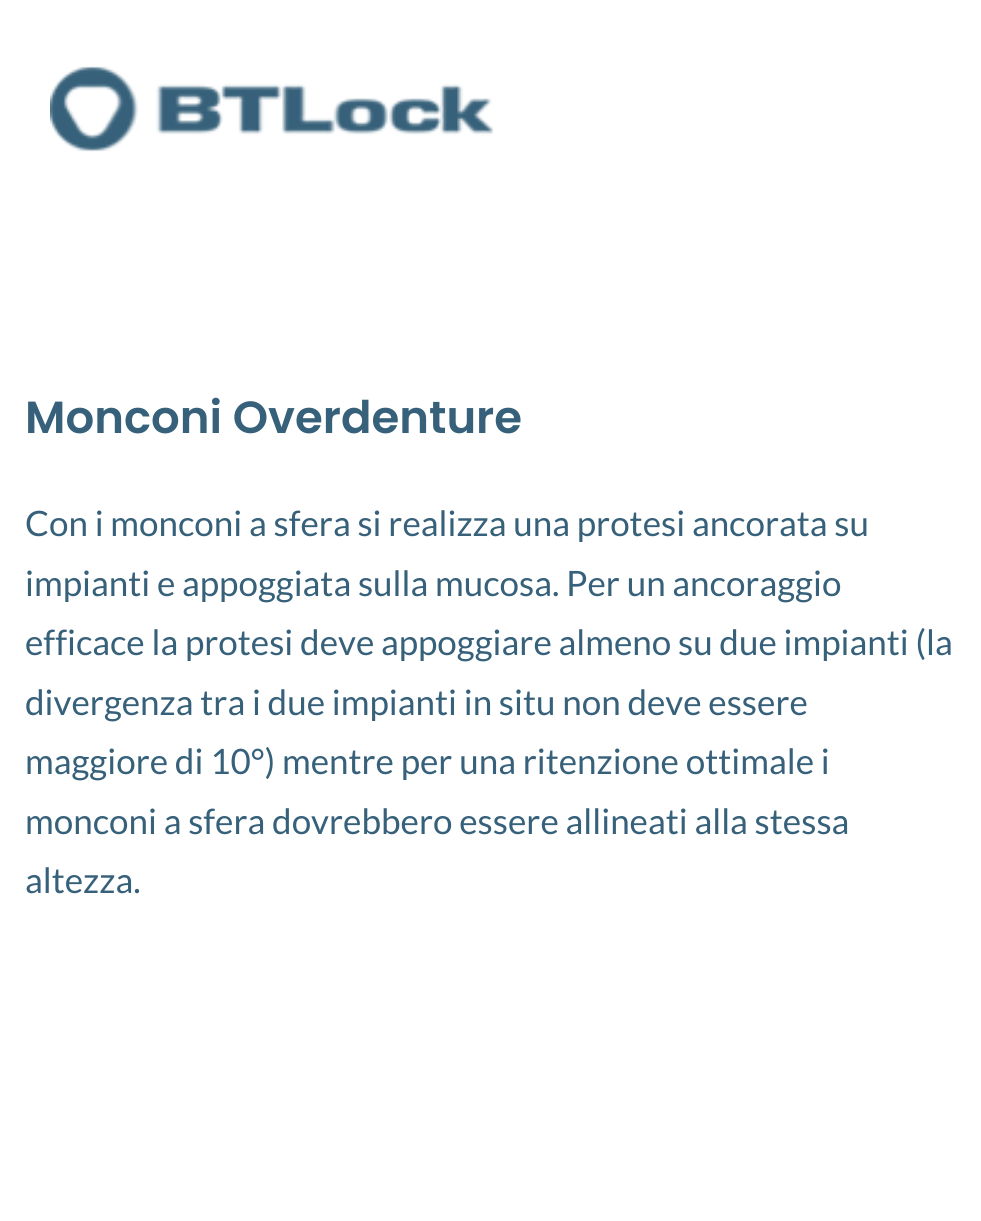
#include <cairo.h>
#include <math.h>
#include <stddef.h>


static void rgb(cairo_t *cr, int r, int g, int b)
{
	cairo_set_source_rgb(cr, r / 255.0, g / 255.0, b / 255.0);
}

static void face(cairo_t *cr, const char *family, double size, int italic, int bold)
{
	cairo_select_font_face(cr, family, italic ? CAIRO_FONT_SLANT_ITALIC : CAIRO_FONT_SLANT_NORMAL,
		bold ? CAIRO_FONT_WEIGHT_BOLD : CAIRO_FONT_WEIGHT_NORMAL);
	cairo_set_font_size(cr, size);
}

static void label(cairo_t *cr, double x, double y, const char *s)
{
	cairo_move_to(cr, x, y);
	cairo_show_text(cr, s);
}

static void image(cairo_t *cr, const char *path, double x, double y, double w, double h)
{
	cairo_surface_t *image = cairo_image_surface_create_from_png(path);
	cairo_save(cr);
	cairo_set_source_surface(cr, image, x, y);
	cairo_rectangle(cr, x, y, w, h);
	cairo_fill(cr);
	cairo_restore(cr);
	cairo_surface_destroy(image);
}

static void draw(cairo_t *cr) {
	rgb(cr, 255, 255, 255);
	cairo_paint(cr);
	image(cr, "image0.png", 50, 66, 443, 86);
	face(cr, "Poppins SemiBold", 45, 0, 0);
	rgb(cr, 55, 97, 122);
	label(cr, 25, 433, "Monconi Overdenture");
	face(cr, "Lato", 35, 0, 0);
	label(cr, 25, 536, "Con i monconi a sfera si realizza una protesi ancorata su");
	label(cr, 25, 596, "impianti e appoggiata sulla mucosa. Per un ancoraggio");
	label(cr, 25, 655, "efficace la protesi deve appoggiare almeno su due impianti (la");
	label(cr, 25, 715, "divergenza tra i due impianti in situ non deve essere");
	label(cr, 25, 774, "maggiore di 10°) mentre per una ritenzione ottimale i");
	label(cr, 25, 834, "monconi a sfera dovrebbero essere allineati alla stessa");
	label(cr, 25, 893, "altezza.");
}

int main(void) {
	cairo_surface_t *surface = cairo_image_surface_create(CAIRO_FORMAT_RGB24, 981, 1221);
	cairo_t *cr = cairo_create(surface);
	cairo_font_options_t *options = cairo_font_options_create();
	cairo_font_options_set_hint_metrics(options, CAIRO_HINT_METRICS_OFF);
	cairo_font_options_set_hint_style(options, CAIRO_HINT_STYLE_NONE);
	cairo_set_font_options(cr, options);
	cairo_set_miter_limit(cr, 4);
	draw(cr);
	cairo_surface_write_to_png(surface, "render.png");
	cairo_font_options_destroy(options);
	cairo_destroy(cr);
	cairo_surface_destroy(surface);
	return 0;
}
